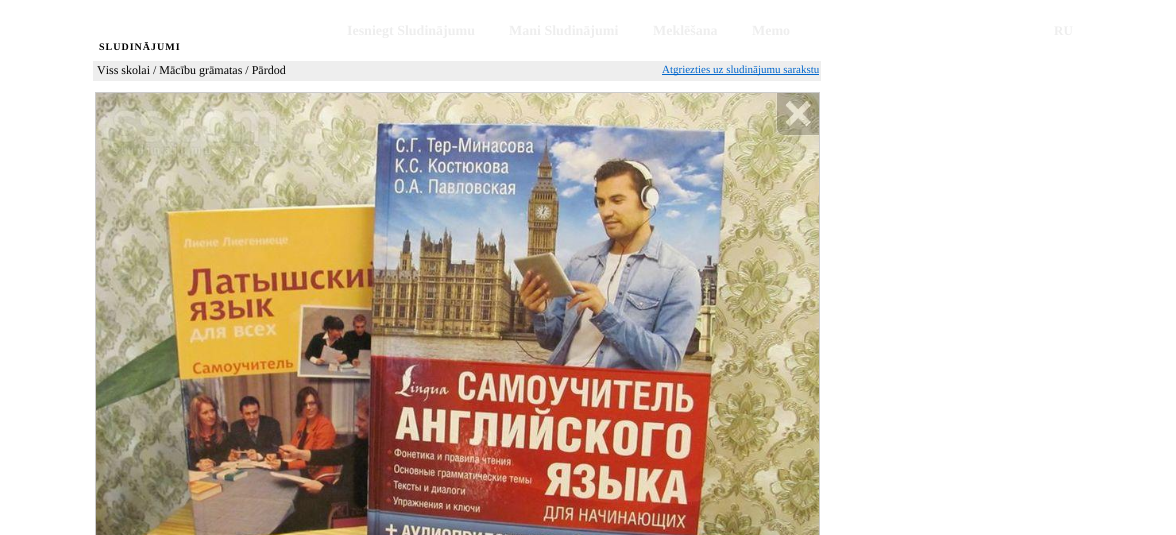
#include <cairo.h>
#include <math.h>
#include <stddef.h>


static void rgb(cairo_t *cr, int r, int g, int b)
{
	cairo_set_source_rgb(cr, r / 255.0, g / 255.0, b / 255.0);
}

static void face(cairo_t *cr, const char *family, double size, int italic, int bold)
{
	cairo_select_font_face(cr, family, italic ? CAIRO_FONT_SLANT_ITALIC : CAIRO_FONT_SLANT_NORMAL,
		bold ? CAIRO_FONT_WEIGHT_BOLD : CAIRO_FONT_WEIGHT_NORMAL);
	cairo_set_font_size(cr, size);
}

static void label(cairo_t *cr, double x, double y, const char *s)
{
	cairo_move_to(cr, x, y);
	cairo_show_text(cr, s);
}

static void tracked(cairo_t *cr, double x, double y, const char *s, double letter, double word)
{
	cairo_move_to(cr, x, y);
	while (*s) {
		char ch[5] = {0};
		int n = 0;
		do ch[n++] = *s++; while ((*s & 0xC0) == 0x80);
		cairo_show_text(cr, ch);
		cairo_rel_move_to(cr, letter + word * (*ch == ' '), 0);
	}
}

static void rect(cairo_t *cr, double x, double y, double w, double h)
{
	cairo_rectangle(cr, x, y, w, h);
	cairo_fill(cr);
}

static void image(cairo_t *cr, const char *path, double x, double y, double w, double h)
{
	cairo_surface_t *image = cairo_image_surface_create_from_png(path);
	cairo_save(cr);
	cairo_set_source_surface(cr, image, x, y);
	cairo_rectangle(cr, x, y, w, h);
	cairo_fill(cr);
	cairo_restore(cr);
	cairo_surface_destroy(image);
}

static void draw(cairo_t *cr) {
	rgb(cr, 255, 255, 255);
	cairo_paint(cr);
	face(cr, "Liberation Serif", 14, 0, 1);
	rgb(cr, 238, 238, 238);
	label(cr, 347, 35, "Iesniegt Sludinājumu");
	label(cr, 509, 35, "Mani Sludinājumi");
	label(cr, 653, 35, "Meklēšana");
	label(cr, 752, 35, "Memo");
	face(cr, "Liberation Serif", 13, 0, 1);
	label(cr, 1054, 35, "RU");
	face(cr, "Liberation Serif", 10, 0, 1);
	rgb(cr, 0, 0, 0);
	tracked(cr, 99, 50, "SLUDINĀJUMI", 1, 0);
	rgb(cr, 238, 238, 238);
	rect(cr, 93, 61, 728, 20);
	face(cr, "Liberation Serif", 12, 0, 0);
	rgb(cr, 0, 0, 0);
	label(cr, 97, 74, "Viss skolai / Mācību grāmatas / Pārdod");
	rgb(cr, 0, 102, 204);
	rect(cr, 662, 74, 157, 1);
	face(cr, "Liberation Serif", 11, 0, 0);
	label(cr, 662, 73, "Atgriezties uz sludinājumu sarakstu");
	cairo_rectangle(cr, 95.5, 92.5, 724, 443);
	rgb(cr, 204, 204, 204);
	cairo_set_line_width(cr, 1);
	cairo_stroke(cr);
	image(cr, "image0.png", 96, 93, 723, 442);
	image(cr, "image1.png", 776, 93, 43, 43);
}

int main(void) {
	cairo_surface_t *surface = cairo_image_surface_create(CAIRO_FORMAT_RGB24, 1176, 535);
	cairo_t *cr = cairo_create(surface);
	cairo_font_options_t *options = cairo_font_options_create();
	cairo_font_options_set_hint_metrics(options, CAIRO_HINT_METRICS_OFF);
	cairo_font_options_set_hint_style(options, CAIRO_HINT_STYLE_NONE);
	cairo_set_font_options(cr, options);
	cairo_set_miter_limit(cr, 4);
	draw(cr);
	cairo_surface_write_to_png(surface, "render.png");
	cairo_font_options_destroy(options);
	cairo_destroy(cr);
	cairo_surface_destroy(surface);
	return 0;
}
